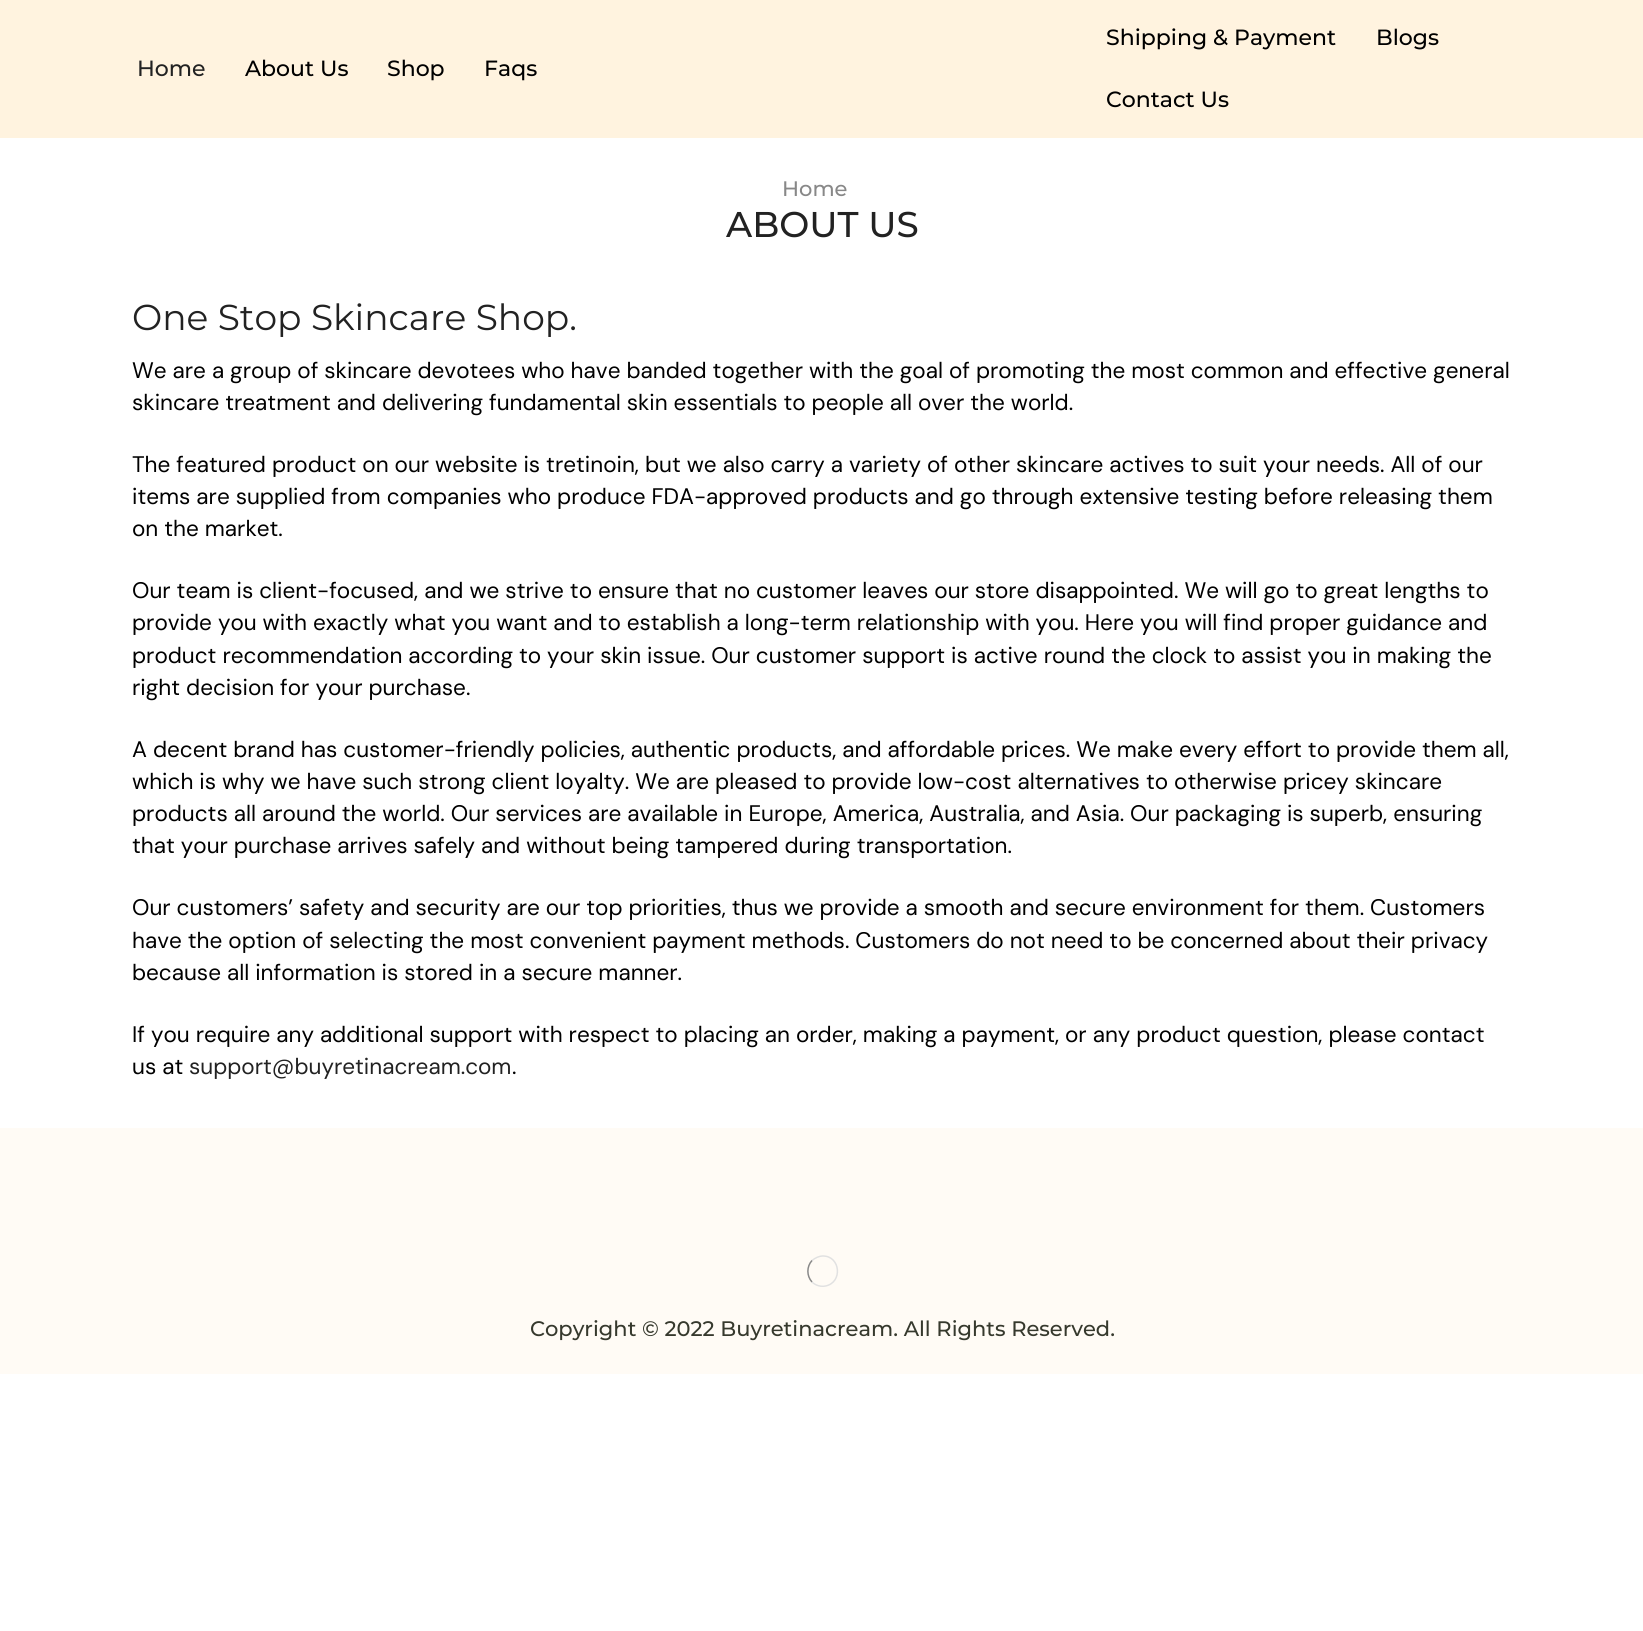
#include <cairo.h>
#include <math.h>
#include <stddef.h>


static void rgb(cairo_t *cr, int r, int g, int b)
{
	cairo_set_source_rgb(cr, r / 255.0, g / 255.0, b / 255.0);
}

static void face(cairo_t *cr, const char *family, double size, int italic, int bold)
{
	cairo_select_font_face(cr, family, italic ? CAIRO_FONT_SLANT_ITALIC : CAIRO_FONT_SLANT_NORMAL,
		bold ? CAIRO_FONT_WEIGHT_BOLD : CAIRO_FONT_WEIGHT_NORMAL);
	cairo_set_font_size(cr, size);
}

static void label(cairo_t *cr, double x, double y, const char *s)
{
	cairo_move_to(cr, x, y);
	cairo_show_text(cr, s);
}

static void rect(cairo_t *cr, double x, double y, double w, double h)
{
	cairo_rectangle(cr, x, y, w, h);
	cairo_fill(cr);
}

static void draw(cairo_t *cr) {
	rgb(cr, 255, 255, 255);
	cairo_paint(cr);
	rgb(cr, 255, 243, 223);
	rect(cr, 0, 0, 1643, 138);
	face(cr, "Montserrat Medium", 22, 0, 0);
	rgb(cr, 34, 34, 34);
	label(cr, 137, 76, "Home");
	rgb(cr, 0, 0, 0);
	label(cr, 245, 76, "About Us");
	label(cr, 387, 76, "Shop");
	label(cr, 484, 76, "Faqs");
	label(cr, 1106, 45, "Shipping & Payment");
	label(cr, 1376, 45, "Blogs");
	label(cr, 1106, 107, "Contact Us");
	face(cr, "Montserrat Medium", 21, 0, 0);
	rgb(cr, 136, 136, 136);
	label(cr, 782, 196, "Home");
	face(cr, "Montserrat Medium", 35.75, 0, 0);
	rgb(cr, 34, 34, 34);
	label(cr, 726, 237, "ABOUT US");
	face(cr, "Montserrat", 36, 0, 0);
	label(cr, 132, 330, "One Stop Skincare Shop.");
	face(cr, "DM Sans", 22.5, 0, 0);
	rgb(cr, 0, 0, 0);
	label(cr, 132, 378, "We are a group of skincare devotees who have banded together with the goal of promoting the most common and effective general");
	label(cr, 132, 410, "skincare treatment and delivering fundamental skin essentials to people all over the world.");
	label(cr, 132, 472, "The featured product on our website is tretinoin, but we also carry a variety of other skincare actives to suit your needs. All of our");
	label(cr, 132, 504, "items are supplied from companies who produce FDA-approved products and go through extensive testing before releasing them");
	label(cr, 132, 536, "on the market.");
	label(cr, 132, 598, "Our team is client-focused, and we strive to ensure that no customer leaves our store disappointed. We will go to great lengths to");
	label(cr, 132, 630, "provide you with exactly what you want and to establish a long-term relationship with you. Here you will find proper guidance and");
	label(cr, 132, 663, "product recommendation according to your skin issue. Our customer support is active round the clock to assist you in making the");
	label(cr, 132, 695, "right decision for your purchase.");
	label(cr, 132, 757, "A decent brand has customer-friendly policies, authentic products, and affordable prices. We make every effort to provide them all,");
	label(cr, 132, 789, "which is why we have such strong client loyalty. We are pleased to provide low-cost alternatives to otherwise pricey skincare");
	label(cr, 132, 821, "products all around the world. Our services are available in Europe, America, Australia, and Asia. Our packaging is superb, ensuring");
	label(cr, 132, 853, "that your purchase arrives safely and without being tampered during transportation.");
	label(cr, 132, 915, "Our customers’ safety and security are our top priorities, thus we provide a smooth and secure environment for them. Customers");
	label(cr, 132, 948, "have the option of selecting the most convenient payment methods. Customers do not need to be concerned about their privacy");
	label(cr, 132, 980, "because all information is stored in a secure manner.");
	label(cr, 132, 1042, "If you require any additional support with respect to placing an order, making a payment, or any product question, please contact");
	label(cr, 132, 1074, "us at");
	rgb(cr, 34, 34, 34);
	label(cr, 189, 1074, "support@buyretinacream.com");
	rgb(cr, 0, 0, 0);
	label(cr, 512, 1074, ".");
	rgb(cr, 255, 251, 245);
	rect(cr, 0, 1128, 1643, 246);
	cairo_new_path(cr);
	cairo_move_to(cr, 812, 1260.5);
	cairo_curve_to(cr, 815, 1258, 819, 1256, 823, 1256);
	cairo_curve_to(cr, 840.5, 1256, 843, 1282.5, 825.5, 1286);
	cairo_curve_to(cr, 821, 1287, 815.5, 1285.5, 812, 1282);
	rgb(cr, 225, 225, 225);
	cairo_set_line_width(cr, 1.5);
	cairo_stroke(cr);
	cairo_new_path(cr);
	cairo_move_to(cr, 812, 1282);
	cairo_curve_to(cr, 806.5, 1276, 806.5, 1266.5, 812, 1260.5);
	rgb(cr, 136, 136, 136);
	cairo_stroke(cr);
	face(cr, "Montserrat Medium", 21, 0, 0);
	rgb(cr, 54, 57, 45);
	label(cr, 530, 1336, "Copyright © 2022 Buyretinacream. All Rights Reserved.");
}

int main(void) {
	cairo_surface_t *surface = cairo_image_surface_create(CAIRO_FORMAT_RGB24, 1643, 1631);
	cairo_t *cr = cairo_create(surface);
	cairo_font_options_t *options = cairo_font_options_create();
	cairo_font_options_set_hint_metrics(options, CAIRO_HINT_METRICS_OFF);
	cairo_font_options_set_hint_style(options, CAIRO_HINT_STYLE_NONE);
	cairo_set_font_options(cr, options);
	cairo_set_miter_limit(cr, 4);
	draw(cr);
	cairo_surface_write_to_png(surface, "render.png");
	cairo_font_options_destroy(options);
	cairo_destroy(cr);
	cairo_surface_destroy(surface);
	return 0;
}
